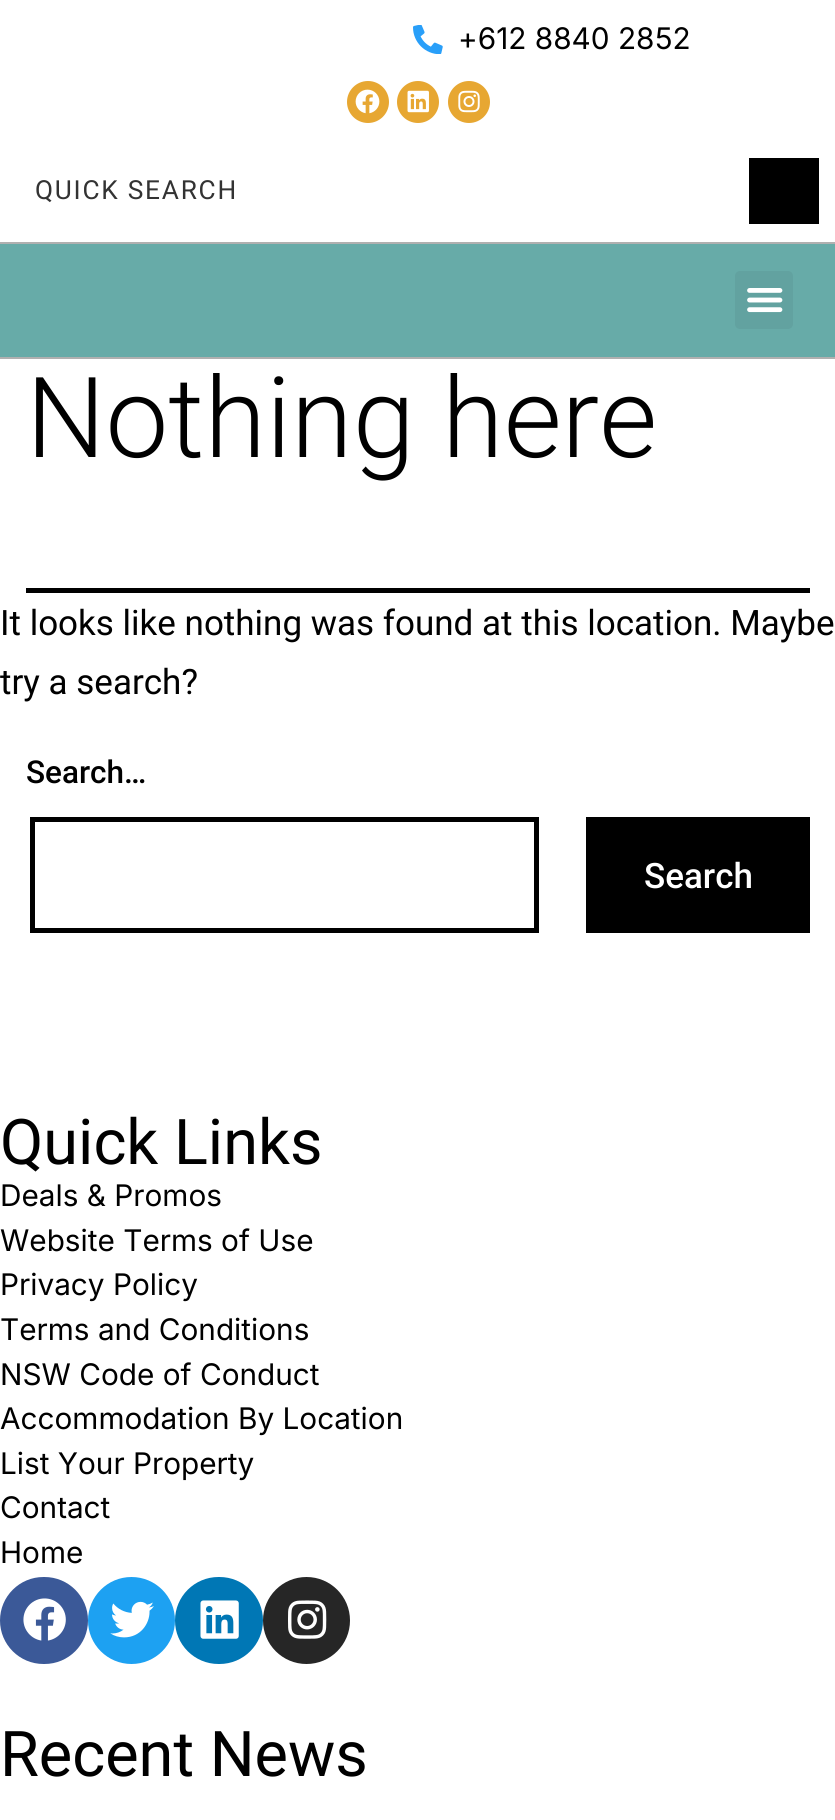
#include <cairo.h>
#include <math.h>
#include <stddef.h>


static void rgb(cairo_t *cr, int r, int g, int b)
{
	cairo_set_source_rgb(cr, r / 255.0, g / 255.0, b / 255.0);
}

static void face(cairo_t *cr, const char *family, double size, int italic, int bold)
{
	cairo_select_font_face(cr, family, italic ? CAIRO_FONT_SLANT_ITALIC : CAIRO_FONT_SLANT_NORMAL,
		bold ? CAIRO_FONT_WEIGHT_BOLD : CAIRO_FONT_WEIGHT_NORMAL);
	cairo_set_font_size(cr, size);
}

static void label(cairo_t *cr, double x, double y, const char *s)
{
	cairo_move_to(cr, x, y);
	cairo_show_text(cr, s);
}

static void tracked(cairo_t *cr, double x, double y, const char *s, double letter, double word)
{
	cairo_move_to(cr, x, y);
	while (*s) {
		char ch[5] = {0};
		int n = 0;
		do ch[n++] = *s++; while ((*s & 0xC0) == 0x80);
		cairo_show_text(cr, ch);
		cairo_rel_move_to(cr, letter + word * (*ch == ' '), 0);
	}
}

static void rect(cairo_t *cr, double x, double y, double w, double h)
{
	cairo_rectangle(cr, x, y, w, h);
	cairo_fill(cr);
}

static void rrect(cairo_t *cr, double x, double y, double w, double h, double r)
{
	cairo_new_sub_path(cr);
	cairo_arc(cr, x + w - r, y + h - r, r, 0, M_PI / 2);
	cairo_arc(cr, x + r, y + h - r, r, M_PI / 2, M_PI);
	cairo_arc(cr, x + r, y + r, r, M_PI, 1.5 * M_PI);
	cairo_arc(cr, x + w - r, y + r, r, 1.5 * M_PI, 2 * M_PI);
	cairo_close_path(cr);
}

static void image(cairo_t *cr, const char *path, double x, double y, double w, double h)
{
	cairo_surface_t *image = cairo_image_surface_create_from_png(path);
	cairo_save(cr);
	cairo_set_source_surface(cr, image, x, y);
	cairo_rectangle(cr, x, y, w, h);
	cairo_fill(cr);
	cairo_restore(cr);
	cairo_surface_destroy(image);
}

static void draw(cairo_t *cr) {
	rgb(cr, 255, 255, 255);
	cairo_paint(cr);
	image(cr, "image0.png", 413, 25, 30, 29);
	face(cr, "Inter", 29.75, 0, 0);
	rgb(cr, 0, 0, 0);
	label(cr, 458, 49, "+612 8840 2852");
	rgb(cr, 231, 167, 50);
	cairo_new_path(cr);
	cairo_arc(cr, 368, 102, 21, 0, 2 * M_PI);
	cairo_fill(cr);
	image(cr, "image1.png", 355, 89, 25, 25);
	cairo_arc(cr, 418, 102, 21, 0, 2 * M_PI);
	cairo_fill(cr);
	image(cr, "image2.png", 407, 90, 22, 23);
	cairo_arc(cr, 469, 102, 21, 0, 2 * M_PI);
	cairo_fill(cr);
	image(cr, "image3.png", 458, 90, 22, 23);
	face(cr, "Roboto", 26.25, 0, 0);
	rgb(cr, 51, 51, 51);
	tracked(cr, 35, 199, "QUICK SEARCH", 1.75, 0);
	rgb(cr, 0, 0, 0);
	rect(cr, 749, 158, 70, 66);
	rgb(cr, 103, 171, 168);
	rect(cr, 0, 244, 835, 113);
	rgb(cr, 176, 176, 176);
	rect(cr, 0, 242, 835, 2);
	rect(cr, 0, 357, 835, 2);
	rgb(cr, 98, 162, 160);
	rrect(cr, 735, 271, 58, 58, 5);
	cairo_fill(cr);
	image(cr, "image4.png", 747, 288, 36, 25);
	rgb(cr, 0, 0, 0);
	rect(cr, 26, 588, 784, 5);
	face(cr, "Roboto Light", 112, 0, 0);
	label(cr, 26, 457, "Nothing here");
	face(cr, "Roboto", 35, 0, 0);
	label(cr, 0, 635, "It looks like nothing was found at this location. Maybe");
	label(cr, 0, 694, "try a search?");
	face(cr, "Roboto Medium", 31.5, 0, 0);
	label(cr, 26, 783, "Search…");
	cairo_rectangle(cr, 32.5, 819.5, 504, 111);
	cairo_set_line_width(cr, 5);
	cairo_stroke(cr);
	rect(cr, 586, 817, 224, 116);
	face(cr, "Roboto Medium", 35, 0, 0);
	rgb(cr, 255, 255, 255);
	label(cr, 644, 888, "Search");
	face(cr, "Roboto", 63, 0, 0);
	rgb(cr, 0, 0, 0);
	label(cr, 0, 1164, "Quick Links");
	face(cr, "Inter", 29.75, 0, 0);
	label(cr, 0, 1206, "Deals & Promos");
	label(cr, 0, 1251, "Website Terms of Use");
	label(cr, 0, 1295, "Privacy Policy");
	label(cr, 0, 1340, "Terms and Conditions");
	label(cr, 0, 1385, "NSW Code of Conduct");
	label(cr, 0, 1429, "Accommodation By Location");
	label(cr, 0, 1474, "List Your Property");
	label(cr, 0, 1518, "Contact");
	label(cr, 0, 1563, "Home");
	rgb(cr, 59, 89, 152);
	rrect(cr, 0, 1577, 88, 87, 43.5);
	cairo_fill(cr);
	image(cr, "image5.png", 23, 1598, 43, 43);
	rgb(cr, 29, 161, 242);
	cairo_arc(cr, 131.5, 1620.5, 43.5, 0, 2 * M_PI);
	cairo_fill(cr);
	image(cr, "image6.png", 110, 1601, 44, 37);
	rgb(cr, 0, 119, 181);
	rrect(cr, 175, 1577, 88, 87, 43.5);
	cairo_fill(cr);
	image(cr, "image7.png", 200, 1600, 39, 39);
	rgb(cr, 38, 38, 38);
	cairo_arc(cr, 306.5, 1620.5, 43.5, 0, 2 * M_PI);
	cairo_fill(cr);
	image(cr, "image8.png", 288, 1600, 39, 39);
	face(cr, "Roboto", 63, 0, 0);
	rgb(cr, 0, 0, 0);
	label(cr, 0, 1776, "Recent News");
}

int main(void) {
	cairo_surface_t *surface = cairo_image_surface_create(CAIRO_FORMAT_RGB24, 835, 1820);
	cairo_t *cr = cairo_create(surface);
	cairo_font_options_t *options = cairo_font_options_create();
	cairo_font_options_set_hint_metrics(options, CAIRO_HINT_METRICS_OFF);
	cairo_font_options_set_hint_style(options, CAIRO_HINT_STYLE_NONE);
	cairo_set_font_options(cr, options);
	cairo_set_miter_limit(cr, 4);
	draw(cr);
	cairo_surface_write_to_png(surface, "render.png");
	cairo_font_options_destroy(options);
	cairo_destroy(cr);
	cairo_surface_destroy(surface);
	return 0;
}
